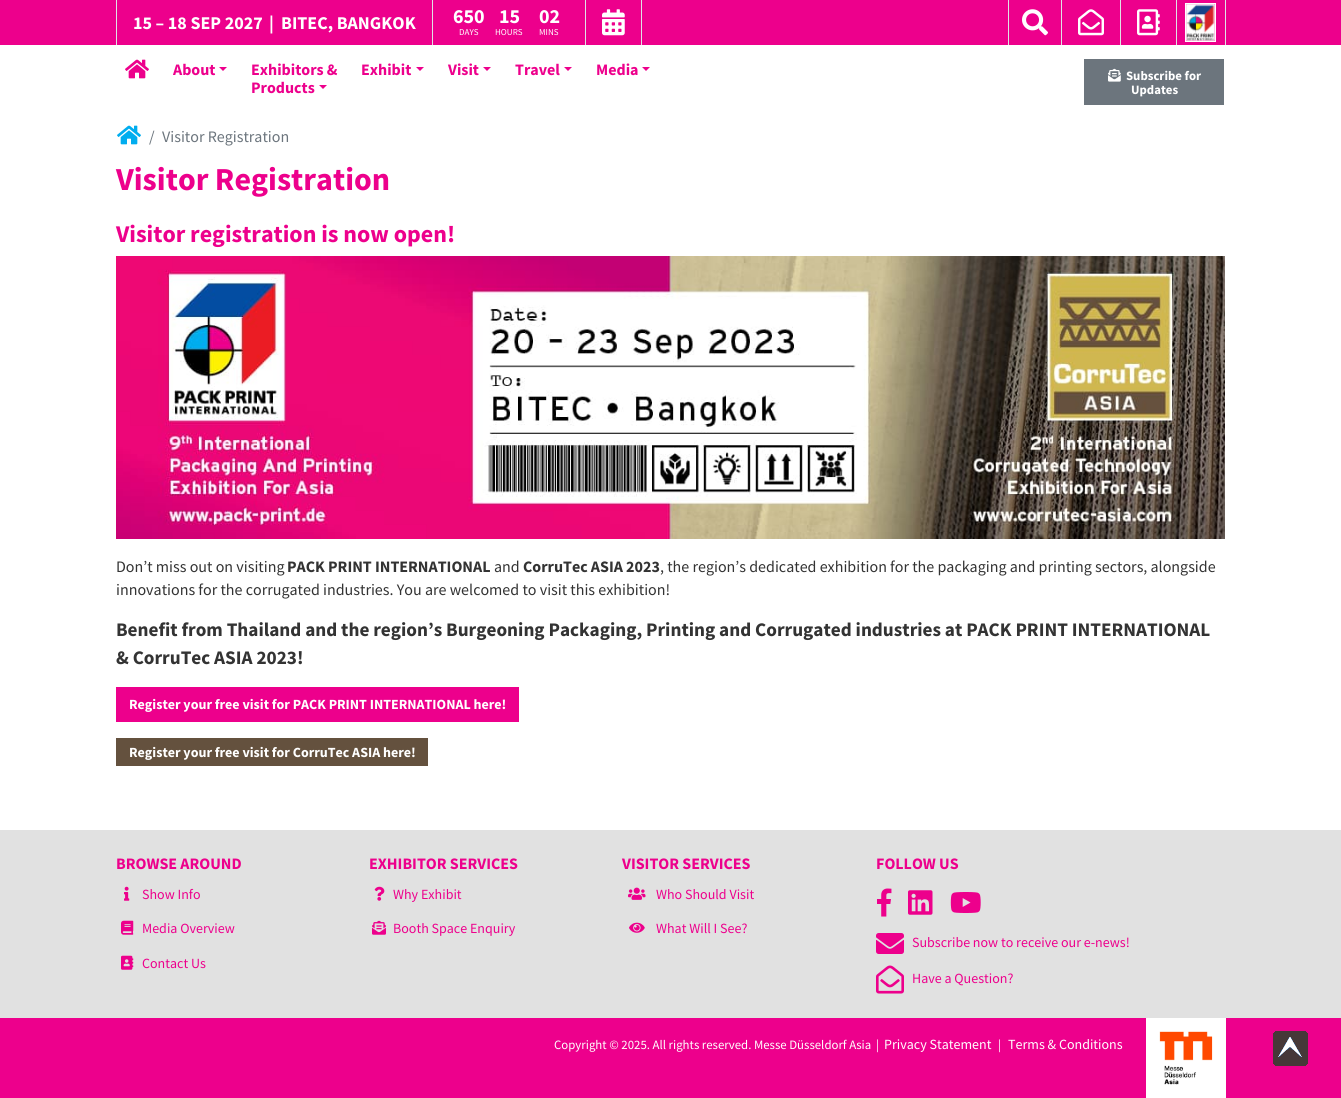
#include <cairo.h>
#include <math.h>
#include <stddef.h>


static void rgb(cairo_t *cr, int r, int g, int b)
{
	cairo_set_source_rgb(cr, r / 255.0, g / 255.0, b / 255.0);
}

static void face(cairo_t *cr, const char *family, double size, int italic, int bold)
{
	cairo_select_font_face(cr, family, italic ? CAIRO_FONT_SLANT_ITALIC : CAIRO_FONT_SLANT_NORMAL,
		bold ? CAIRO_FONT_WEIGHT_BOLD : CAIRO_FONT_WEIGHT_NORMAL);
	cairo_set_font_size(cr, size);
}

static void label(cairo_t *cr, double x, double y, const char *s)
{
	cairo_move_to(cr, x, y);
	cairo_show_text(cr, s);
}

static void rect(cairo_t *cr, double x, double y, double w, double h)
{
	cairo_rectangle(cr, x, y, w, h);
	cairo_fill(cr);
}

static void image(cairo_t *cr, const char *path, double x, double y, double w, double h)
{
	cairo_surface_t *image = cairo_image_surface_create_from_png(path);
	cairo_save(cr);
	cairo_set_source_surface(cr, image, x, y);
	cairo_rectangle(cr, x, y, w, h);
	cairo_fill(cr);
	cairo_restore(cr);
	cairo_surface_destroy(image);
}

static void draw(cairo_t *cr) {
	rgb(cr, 255, 255, 255);
	cairo_paint(cr);
	rgb(cr, 237, 0, 140);
	rect(cr, 0, 0, 1341, 45);
	rgb(cr, 222, 226, 230);
	rect(cr, 432, 0, 1, 45);
	rect(cr, 116, 0, 1, 45);
	face(cr, "Source Sans Pro", 18, 0, 1);
	rgb(cr, 255, 255, 255);
	label(cr, 133, 29, "15 – 18 SEP 2027");
	label(cr, 269, 29, "|");
	label(cr, 281, 29, "BITEC, BANGKOK");
	rgb(cr, 222, 226, 230);
	rect(cr, 585, 0, 1, 45);
	face(cr, "Source Sans Pro", 20, 0, 1);
	rgb(cr, 255, 255, 255);
	label(cr, 453, 23, "650");
	face(cr, "Source Sans Pro", 9, 0, 0);
	label(cr, 459, 35, "DAYS");
	face(cr, "Source Sans Pro", 20, 0, 1);
	label(cr, 499, 23, "15");
	face(cr, "Source Sans Pro", 9, 0, 0);
	label(cr, 495, 35, "HOURS");
	face(cr, "Source Sans Pro", 20, 0, 1);
	label(cr, 539, 23, "02");
	face(cr, "Source Sans Pro", 9, 0, 0);
	label(cr, 539, 35, "MINS");
	rgb(cr, 222, 226, 230);
	rect(cr, 641, 0, 1, 45);
	image(cr, "image0.png", 602, 9, 23, 27);
	rect(cr, 1008, 0, 1, 45);
	image(cr, "image1.png", 1022, 9, 26, 27);
	rect(cr, 1061, 0, 1, 45);
	image(cr, "image2.png", 1078, 9, 26, 27);
	rect(cr, 1120, 0, 1, 45);
	image(cr, "image3.png", 1137, 9, 23, 27);
	rect(cr, 1225, 0, 1, 45);
	rect(cr, 1176, 0, 1, 45);
	cairo_rectangle(cr, 1185.5, 3.5, 30, 38);
	rgb(cr, 255, 255, 255);
	cairo_set_line_width(cr, 1);
	cairo_stroke(cr);
	image(cr, "image4.png", 1186, 4, 29, 37);
	image(cr, "image5.png", 125, 59, 24, 20);
	face(cr, "Source Sans Pro", 16, 0, 1);
	rgb(cr, 237, 0, 140);
	label(cr, 173, 75, "About");
	cairo_new_path(cr);
	cairo_move_to(cr, 219, 67);
	cairo_line_to(cr, 227, 67);
	cairo_line_to(cr, 223, 71);
	cairo_close_path(cr);
	cairo_fill(cr);
	label(cr, 251, 75, "Exhibitors &");
	label(cr, 251, 93, "Products");
	cairo_new_path(cr);
	cairo_move_to(cr, 319, 85);
	cairo_line_to(cr, 327, 85);
	cairo_line_to(cr, 323, 89);
	cairo_close_path(cr);
	cairo_fill(cr);
	label(cr, 361, 75, "Exhibit");
	cairo_new_path(cr);
	cairo_move_to(cr, 416, 67);
	cairo_line_to(cr, 424, 67);
	cairo_line_to(cr, 420, 71);
	cairo_close_path(cr);
	cairo_fill(cr);
	label(cr, 448, 75, "Visit");
	cairo_new_path(cr);
	cairo_move_to(cr, 483, 67);
	cairo_line_to(cr, 491, 67);
	cairo_line_to(cr, 487, 71);
	cairo_close_path(cr);
	cairo_fill(cr);
	label(cr, 515, 75, "Travel");
	cairo_new_path(cr);
	cairo_move_to(cr, 564, 67);
	cairo_line_to(cr, 572, 67);
	cairo_line_to(cr, 568, 71);
	cairo_close_path(cr);
	cairo_fill(cr);
	label(cr, 596, 75, "Media");
	cairo_new_path(cr);
	cairo_move_to(cr, 642, 67);
	cairo_line_to(cr, 650, 67);
	cairo_line_to(cr, 646, 71);
	cairo_close_path(cr);
	cairo_fill(cr);
	rgb(cr, 108, 117, 125);
	rect(cr, 1084, 59, 140, 46);
	image(cr, "image6.png", 1108, 68, 13, 14);
	face(cr, "Source Sans Pro", 12.8, 0, 1);
	rgb(cr, 255, 255, 255);
	label(cr, 1126, 80, "Subscribe for");
	label(cr, 1131, 94, "Updates");
	image(cr, "image7.png", 117, 125, 24, 20);
	face(cr, "Source Sans Pro", 16, 0, 0);
	rgb(cr, 108, 117, 125);
	label(cr, 149, 142, "/");
	label(cr, 162, 142, "Visitor Registration");
	face(cr, "Source Sans Pro", 32, 0, 1);
	rgb(cr, 237, 0, 140);
	label(cr, 116, 190, "Visitor Registration");
	face(cr, "Source Sans Pro", 24, 0, 1);
	label(cr, 116, 242, "Visitor registration is now open!");
	image(cr, "image8.png", 116, 256, 1109, 283);
	face(cr, "Source Sans Pro", 16, 0, 0);
	rgb(cr, 51, 51, 51);
	label(cr, 116, 572, "Don’t miss out on visiting");
	face(cr, "Source Sans Pro", 16, 0, 1);
	label(cr, 287, 572, "PACK PRINT INTERNATIONAL");
	face(cr, "Source Sans Pro", 16, 0, 0);
	label(cr, 494, 572, "and");
	face(cr, "Source Sans Pro", 16, 0, 1);
	label(cr, 523, 572, "CorruTec ASIA 2023");
	face(cr, "Source Sans Pro", 16, 0, 0);
	label(cr, 660, 572, ", the region’s dedicated exhibition for the packaging and printing sectors, alongside");
	label(cr, 116, 595, "innovations for the corrugated industries. You are welcomed to visit this exhibition!");
	face(cr, "Source Sans Pro", 19.2, 0, 1);
	label(cr, 116, 636, "Benefit from Thailand and the region’s Burgeoning Packaging, Printing and Corrugated industries at PACK PRINT INTERNATIONAL");
	label(cr, 116, 664, "& CorruTec ASIA 2023!");
	rgb(cr, 237, 0, 140);
	rect(cr, 116, 687, 403, 35);
	face(cr, "Source Sans Pro", 14, 0, 1);
	rgb(cr, 255, 255, 255);
	label(cr, 129, 709, "Register your free visit for PACK PRINT INTERNATIONAL here!");
	rgb(cr, 100, 81, 62);
	rect(cr, 116, 738, 312, 28);
	rgb(cr, 255, 255, 255);
	label(cr, 129, 757, "Register your free visit for CorruTec ASIA here!");
	rgb(cr, 225, 225, 225);
	rect(cr, 0, 830, 1341, 188);
	face(cr, "Source Sans Pro", 16, 0, 1);
	rgb(cr, 237, 0, 140);
	label(cr, 116, 869, "BROWSE AROUND");
	image(cr, "image9.png", 124, 886, 6, 15);
	face(cr, "Source Sans Pro", 14, 0, 0);
	label(cr, 142, 899, "Show Info");
	image(cr, "image10.png", 121, 920, 13, 15);
	label(cr, 142, 933, "Media Overview");
	image(cr, "image11.png", 121, 955, 13, 15);
	label(cr, 142, 968, "Contact Us");
	face(cr, "Source Sans Pro", 16, 0, 1);
	label(cr, 369, 869, "EXHIBITOR SERVICES");
	image(cr, "image12.png", 374, 886, 11, 15);
	face(cr, "Source Sans Pro", 14, 0, 0);
	label(cr, 393, 899, "Why Exhibit");
	image(cr, "image13.png", 372, 920, 14, 15);
	label(cr, 393, 933, "Booth Space Enquiry");
	face(cr, "Source Sans Pro", 16, 0, 1);
	label(cr, 622, 869, "VISITOR SERVICES");
	image(cr, "image14.png", 628, 887, 18, 13);
	face(cr, "Source Sans Pro", 14, 0, 0);
	label(cr, 656, 899, "Who Should Visit");
	image(cr, "image15.png", 629, 922, 16, 11);
	label(cr, 656, 933, "What Will I See?");
	face(cr, "Source Sans Pro", 16, 0, 1);
	label(cr, 876, 869, "FOLLOW US");
	image(cr, "image16.png", 877, 888, 15, 29);
	image(cr, "image17.png", 908, 890, 25, 25);
	image(cr, "image18.png", 950, 892, 31, 21);
	image(cr, "image19.png", 876, 933, 28, 21);
	face(cr, "Source Sans Pro", 14, 0, 0);
	label(cr, 912, 947, "Subscribe now to receive our e-news!");
	image(cr, "image20.png", 876, 965, 28, 29);
	label(cr, 912, 983, "Have a Question?");
	rect(cr, 0, 1018, 1341, 80);
	face(cr, "Source Sans Pro", 12.8, 0, 0);
	rgb(cr, 255, 255, 255);
	label(cr, 554, 1049, "Copyright © 2025. All rights reserved. Messe Düsseldorf Asia");
	label(cr, 876, 1049, "|");
	face(cr, "Source Sans Pro", 14, 0, 0);
	label(cr, 884, 1049, "Privacy Statement");
	face(cr, "Source Sans Pro", 12.8, 0, 0);
	label(cr, 998, 1049, "|");
	face(cr, "Source Sans Pro", 14, 0, 0);
	label(cr, 1008, 1049, "Terms & Conditions");
	image(cr, "image21.png", 1146, 1018, 80, 80);
	image(cr, "image22.png", 1273, 1031, 35, 35);
}

int main(void) {
	cairo_surface_t *surface = cairo_image_surface_create(CAIRO_FORMAT_RGB24, 1341, 1098);
	cairo_t *cr = cairo_create(surface);
	cairo_font_options_t *options = cairo_font_options_create();
	cairo_font_options_set_hint_metrics(options, CAIRO_HINT_METRICS_OFF);
	cairo_font_options_set_hint_style(options, CAIRO_HINT_STYLE_NONE);
	cairo_set_font_options(cr, options);
	cairo_set_miter_limit(cr, 4);
	draw(cr);
	cairo_surface_write_to_png(surface, "render.png");
	cairo_font_options_destroy(options);
	cairo_destroy(cr);
	cairo_surface_destroy(surface);
	return 0;
}
